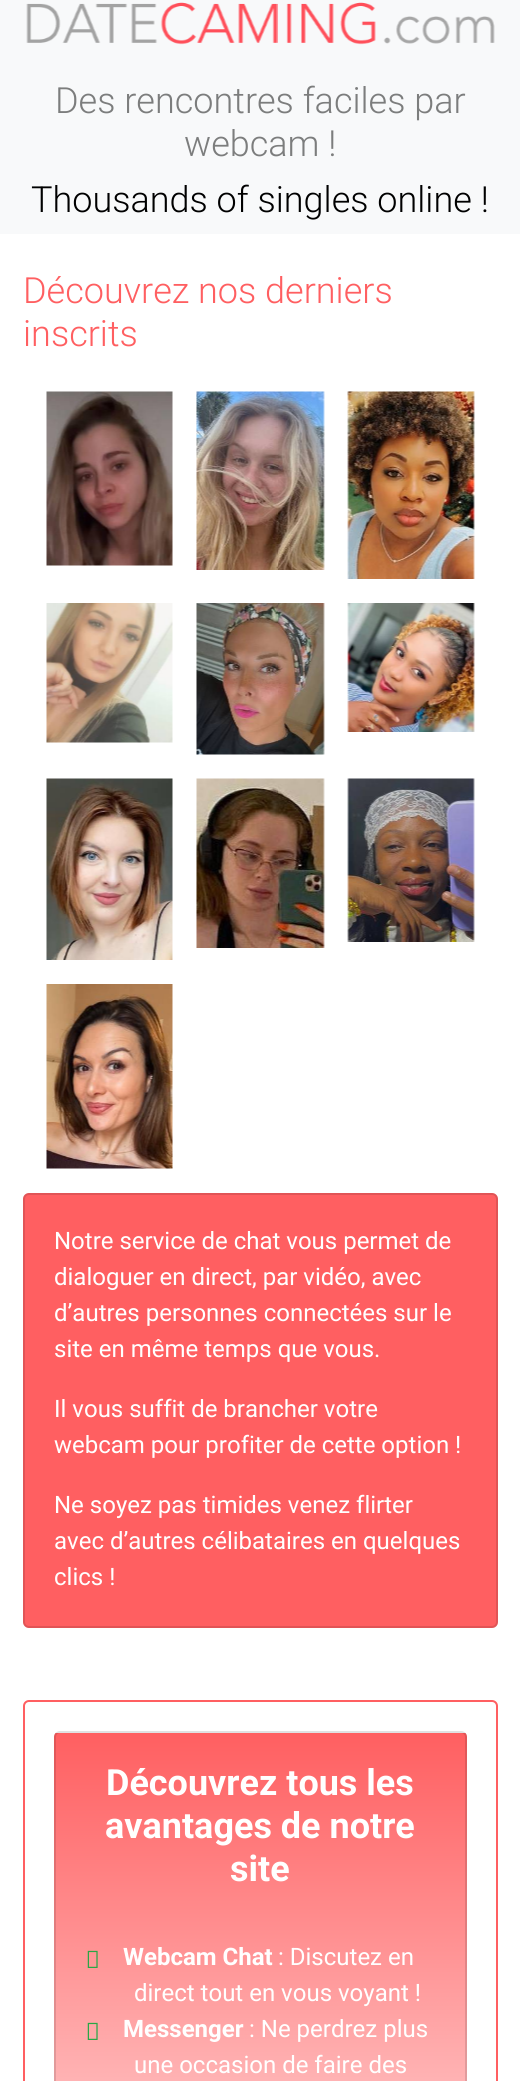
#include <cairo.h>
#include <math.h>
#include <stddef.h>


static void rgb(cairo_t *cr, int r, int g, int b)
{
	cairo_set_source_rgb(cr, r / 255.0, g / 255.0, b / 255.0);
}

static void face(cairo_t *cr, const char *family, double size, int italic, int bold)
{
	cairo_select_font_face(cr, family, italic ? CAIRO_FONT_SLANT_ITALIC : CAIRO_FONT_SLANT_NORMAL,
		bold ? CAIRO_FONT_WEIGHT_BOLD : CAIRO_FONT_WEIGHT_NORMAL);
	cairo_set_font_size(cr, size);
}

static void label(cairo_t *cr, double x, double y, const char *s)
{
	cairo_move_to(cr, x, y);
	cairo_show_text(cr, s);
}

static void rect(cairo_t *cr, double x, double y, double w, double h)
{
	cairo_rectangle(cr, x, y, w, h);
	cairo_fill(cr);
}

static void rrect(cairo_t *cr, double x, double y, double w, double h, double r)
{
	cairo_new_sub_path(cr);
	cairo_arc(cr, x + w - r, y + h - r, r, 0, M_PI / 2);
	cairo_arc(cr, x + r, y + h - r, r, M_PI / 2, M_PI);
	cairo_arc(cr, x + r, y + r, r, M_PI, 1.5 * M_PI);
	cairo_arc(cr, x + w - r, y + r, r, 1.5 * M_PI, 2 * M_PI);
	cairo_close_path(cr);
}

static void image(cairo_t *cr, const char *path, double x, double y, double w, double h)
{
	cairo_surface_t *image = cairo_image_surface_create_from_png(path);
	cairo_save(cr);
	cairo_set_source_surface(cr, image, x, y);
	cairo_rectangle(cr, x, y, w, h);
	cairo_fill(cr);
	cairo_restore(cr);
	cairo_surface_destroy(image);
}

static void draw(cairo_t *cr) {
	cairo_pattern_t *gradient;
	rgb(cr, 255, 255, 255);
	cairo_paint(cr);
	rgb(cr, 248, 249, 250);
	rect(cr, 0, 0, 520, 234);
	image(cr, "image0.png", 26, 2, 469, 43);
	face(cr, "Roboto Light", 36, 0, 0);
	rgb(cr, 124, 125, 125);
	label(cr, 55, 113, "Des rencontres faciles par");
	label(cr, 184, 156, "webcam !");
	rgb(cr, 0, 0, 0);
	label(cr, 31, 212, "Thousands of singles online !");
	rgb(cr, 255, 95, 97);
	label(cr, 23, 303, "Découvrez nos derniers");
	label(cr, 23, 346, "inscrits");
	image(cr, "image1.png", 46, 391, 127, 175);
	image(cr, "image2.png", 196, 391, 129, 179);
	image(cr, "image3.png", 347, 391, 128, 188);
	image(cr, "image4.png", 46, 603, 127, 140);
	image(cr, "image5.png", 196, 603, 129, 152);
	image(cr, "image6.png", 347, 603, 128, 129);
	image(cr, "image7.png", 46, 778, 127, 182);
	image(cr, "image8.png", 196, 778, 129, 170);
	image(cr, "image9.png", 347, 778, 128, 164);
	image(cr, "image10.png", 46, 984, 127, 185);
	rrect(cr, 23, 1193, 475, 435, 6);
	cairo_fill(cr);
	rrect(cr, 24, 1194, 473, 433, 5);
	cairo_set_source_rgba(cr, 0, 0, 0, 0.12);
	cairo_stroke(cr);
	face(cr, "Roboto", 24, 0, 0);
	rgb(cr, 255, 255, 255);
	label(cr, 54, 1249, "Notre service de chat vous permet de");
	label(cr, 54, 1285, "dialoguer en direct, par vidéo, avec");
	label(cr, 54, 1321, "d’autres personnes connectées sur le");
	label(cr, 54, 1357, "site en même temps que vous.");
	label(cr, 54, 1417, "Il vous suffit de brancher votre");
	label(cr, 54, 1453, "webcam pour profiter de cette option !");
	label(cr, 54, 1513, "Ne soyez pas timides venez flirter");
	label(cr, 54, 1549, "avec d’autres célibataires en quelques");
	label(cr, 54, 1585, "clics !");
	rrect(cr, 24, 1701, 473, 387, 5);
	rgb(cr, 255, 95, 97);
	cairo_stroke(cr);
	cairo_save(cr);
	rrect(cr, 54, 1731, 413, 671, 6);
	cairo_clip(cr);
	gradient = cairo_pattern_create_linear(260, 1733, 260, 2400);
	cairo_pattern_add_color_stop_rgba(gradient, 0, 1, 0.373, 0.38, 1);
	cairo_pattern_add_color_stop_rgba(gradient, 1, 1, 1, 1, 1);
	cairo_set_source(cr, gradient);
	cairo_pattern_destroy(gradient);
	rect(cr, 54, 1733, 413, 348);
	cairo_restore(cr);
	rrect(cr, 55, 1732, 411, 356, 5);
	cairo_set_source_rgba(cr, 0, 0, 0, 0.12);
	cairo_stroke(cr);
	face(cr, "Roboto", 36, 0, 1);
	rgb(cr, 255, 255, 255);
	label(cr, 106, 1795, "Découvrez tous les");
	label(cr, 105, 1838, "avantages de notre");
	label(cr, 230, 1881, "site");
	image(cr, "image11.png", 87, 1950, 11, 18);
	face(cr, "Roboto", 24, 0, 1);
	label(cr, 123, 1965, "Webcam Chat");
	face(cr, "Roboto", 24, 0, 0);
	label(cr, 278, 1965, ": Discutez en");
	label(cr, 134, 2001, "direct tout en vous voyant !");
	image(cr, "image12.png", 87, 2022, 11, 18);
	face(cr, "Roboto", 24, 0, 1);
	label(cr, 123, 2037, "Messenger");
	face(cr, "Roboto", 24, 0, 0);
	label(cr, 249, 2037, ": Ne perdrez plus");
	label(cr, 134, 2073, "une occasion de faire des");
}

int main(void) {
	cairo_surface_t *surface = cairo_image_surface_create(CAIRO_FORMAT_RGB24, 520, 2081);
	cairo_t *cr = cairo_create(surface);
	cairo_font_options_t *options = cairo_font_options_create();
	cairo_font_options_set_hint_metrics(options, CAIRO_HINT_METRICS_OFF);
	cairo_font_options_set_hint_style(options, CAIRO_HINT_STYLE_NONE);
	cairo_set_font_options(cr, options);
	cairo_set_miter_limit(cr, 4);
	draw(cr);
	cairo_surface_write_to_png(surface, "render.png");
	cairo_font_options_destroy(options);
	cairo_destroy(cr);
	cairo_surface_destroy(surface);
	return 0;
}
